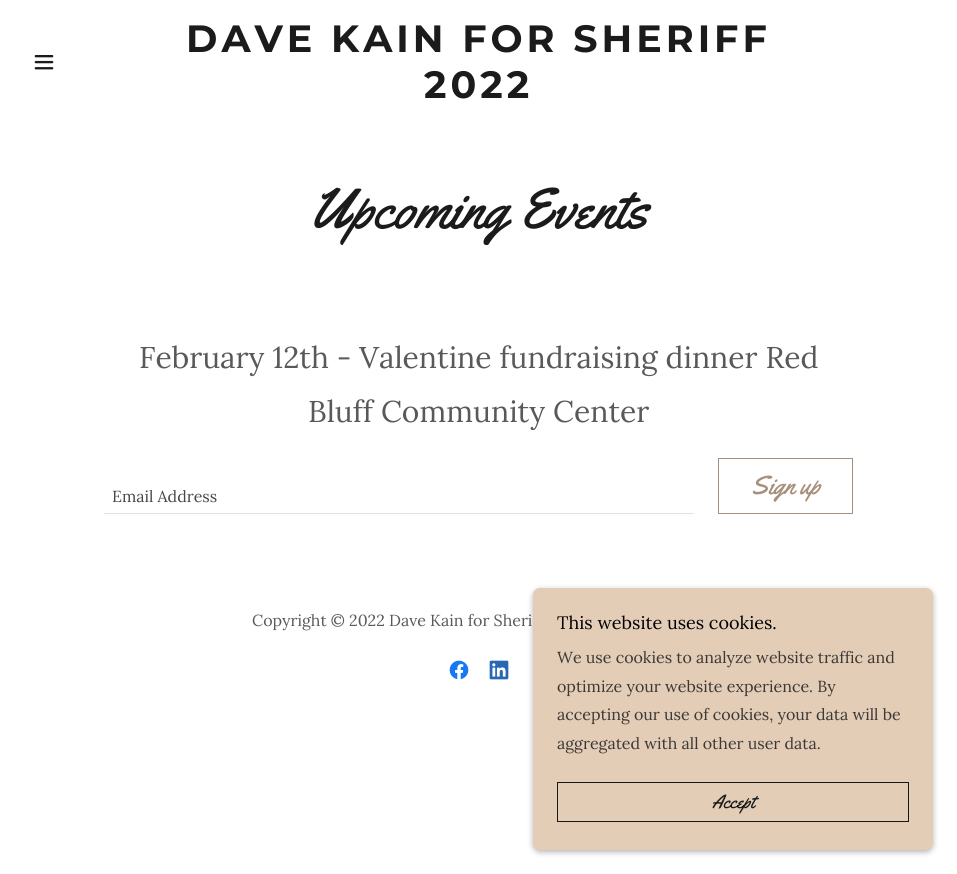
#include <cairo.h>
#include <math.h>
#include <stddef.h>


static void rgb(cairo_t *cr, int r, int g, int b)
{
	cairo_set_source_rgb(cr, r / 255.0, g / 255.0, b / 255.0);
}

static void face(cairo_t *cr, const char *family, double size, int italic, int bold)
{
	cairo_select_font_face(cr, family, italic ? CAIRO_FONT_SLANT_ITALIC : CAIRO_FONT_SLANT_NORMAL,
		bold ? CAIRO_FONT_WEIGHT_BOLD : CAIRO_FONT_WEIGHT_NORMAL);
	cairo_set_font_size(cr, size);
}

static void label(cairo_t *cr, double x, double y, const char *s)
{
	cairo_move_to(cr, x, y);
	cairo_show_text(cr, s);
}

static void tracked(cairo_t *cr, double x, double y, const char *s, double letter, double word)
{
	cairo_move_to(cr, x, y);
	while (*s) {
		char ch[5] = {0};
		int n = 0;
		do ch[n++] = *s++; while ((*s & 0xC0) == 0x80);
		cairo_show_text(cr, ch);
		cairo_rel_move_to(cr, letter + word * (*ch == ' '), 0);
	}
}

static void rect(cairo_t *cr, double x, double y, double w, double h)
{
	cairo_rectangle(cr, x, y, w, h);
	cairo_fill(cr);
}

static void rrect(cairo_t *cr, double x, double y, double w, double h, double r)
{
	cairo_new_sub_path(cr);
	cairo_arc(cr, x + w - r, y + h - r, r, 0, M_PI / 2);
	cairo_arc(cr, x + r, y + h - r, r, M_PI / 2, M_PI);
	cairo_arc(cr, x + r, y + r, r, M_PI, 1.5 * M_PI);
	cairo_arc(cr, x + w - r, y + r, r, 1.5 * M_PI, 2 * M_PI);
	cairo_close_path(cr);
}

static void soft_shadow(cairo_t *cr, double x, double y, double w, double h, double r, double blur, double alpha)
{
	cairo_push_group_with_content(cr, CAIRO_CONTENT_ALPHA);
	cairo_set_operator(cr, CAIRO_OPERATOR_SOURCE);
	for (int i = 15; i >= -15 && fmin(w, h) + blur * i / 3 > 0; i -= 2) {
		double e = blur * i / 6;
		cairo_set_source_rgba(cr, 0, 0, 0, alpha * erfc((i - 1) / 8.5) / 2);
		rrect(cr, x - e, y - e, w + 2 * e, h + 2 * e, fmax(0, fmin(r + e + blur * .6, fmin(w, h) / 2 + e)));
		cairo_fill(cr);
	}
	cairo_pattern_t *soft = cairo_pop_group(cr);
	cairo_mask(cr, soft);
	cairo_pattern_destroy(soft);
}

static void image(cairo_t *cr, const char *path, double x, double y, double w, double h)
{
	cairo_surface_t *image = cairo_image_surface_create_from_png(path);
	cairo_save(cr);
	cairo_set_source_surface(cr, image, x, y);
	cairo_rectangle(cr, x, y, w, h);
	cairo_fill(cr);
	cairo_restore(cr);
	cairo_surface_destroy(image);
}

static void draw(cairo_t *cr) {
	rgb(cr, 255, 255, 255);
	cairo_paint(cr);
	image(cr, "image0.png", 34, 55, 20, 15);
	face(cr, "Montserrat", 38, 0, 1);
	rgb(cr, 27, 27, 27);
	tracked(cr, 186, 52, "DAVE KAIN FOR SHERIFF", 4, 0);
	tracked(cr, 424, 98, "2022", 4, 0);
	face(cr, "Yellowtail", 57, 0, 0);
	label(cr, 309, 228, "Upcoming Events");
	face(cr, "Lora", 30, 0, 0);
	rgb(cr, 89, 89, 89);
	label(cr, 139, 368, "February 12th - Valentine fundraising dinner Red");
	label(cr, 308, 422, "Bluff Community Center");
	face(cr, "Lora", 16, 0, 0);
	rgb(cr, 71, 71, 71);
	label(cr, 112, 502, "Email Address");
	rgb(cr, 226, 226, 226);
	rect(cr, 104, 513, 590, 1);
	cairo_rectangle(cr, 718.5, 458.5, 134, 55);
	rgb(cr, 166, 144, 123);
	cairo_set_line_width(cr, 1);
	cairo_stroke(cr);
	face(cr, "Yellowtail", 26, 0, 0);
	label(cr, 751, 494, "Sign up");
	face(cr, "Lora", 16, 0, 0);
	rgb(cr, 89, 89, 89);
	label(cr, 252, 626, "Copyright © 2022 Dave Kain for Sheri");
	image(cr, "image1.png", 449, 660, 20, 20);
	image(cr, "image2.png", 489, 660, 20, 20);
	rgb(cr, 0, 0, 0);
	soft_shadow(cr, 533, 590, 400, 262, 7, 3, 0.3);
	rgb(cr, 227, 205, 183);
	rrect(cr, 533, 588, 400, 262, 7);
	cairo_fill(cr);
	face(cr, "Lora", 18, 0, 0);
	rgb(cr, 0, 0, 0);
	label(cr, 557, 629, "This website uses cookies.");
	face(cr, "Lora", 16, 0, 0);
	rgb(cr, 59, 56, 53);
	label(cr, 557, 663, "We use cookies to analyze website traffic and");
	label(cr, 557, 692, "optimize your website experience. By");
	label(cr, 557, 720, "accepting our use of cookies, your data will be");
	label(cr, 557, 749, "aggregated with all other user data.");
	cairo_rectangle(cr, 557.5, 782.5, 351, 39);
	rgb(cr, 22, 22, 22);
	cairo_stroke(cr);
	face(cr, "Yellowtail", 19, 0, 0);
	rgb(cr, 27, 27, 27);
	label(cr, 712, 808, "Accept");
}

int main(void) {
	cairo_surface_t *surface = cairo_image_surface_create(CAIRO_FORMAT_RGB24, 957, 874);
	cairo_t *cr = cairo_create(surface);
	cairo_font_options_t *options = cairo_font_options_create();
	cairo_font_options_set_hint_metrics(options, CAIRO_HINT_METRICS_OFF);
	cairo_font_options_set_hint_style(options, CAIRO_HINT_STYLE_NONE);
	cairo_set_font_options(cr, options);
	cairo_set_miter_limit(cr, 4);
	draw(cr);
	cairo_surface_write_to_png(surface, "render.png");
	cairo_font_options_destroy(options);
	cairo_destroy(cr);
	cairo_surface_destroy(surface);
	return 0;
}
